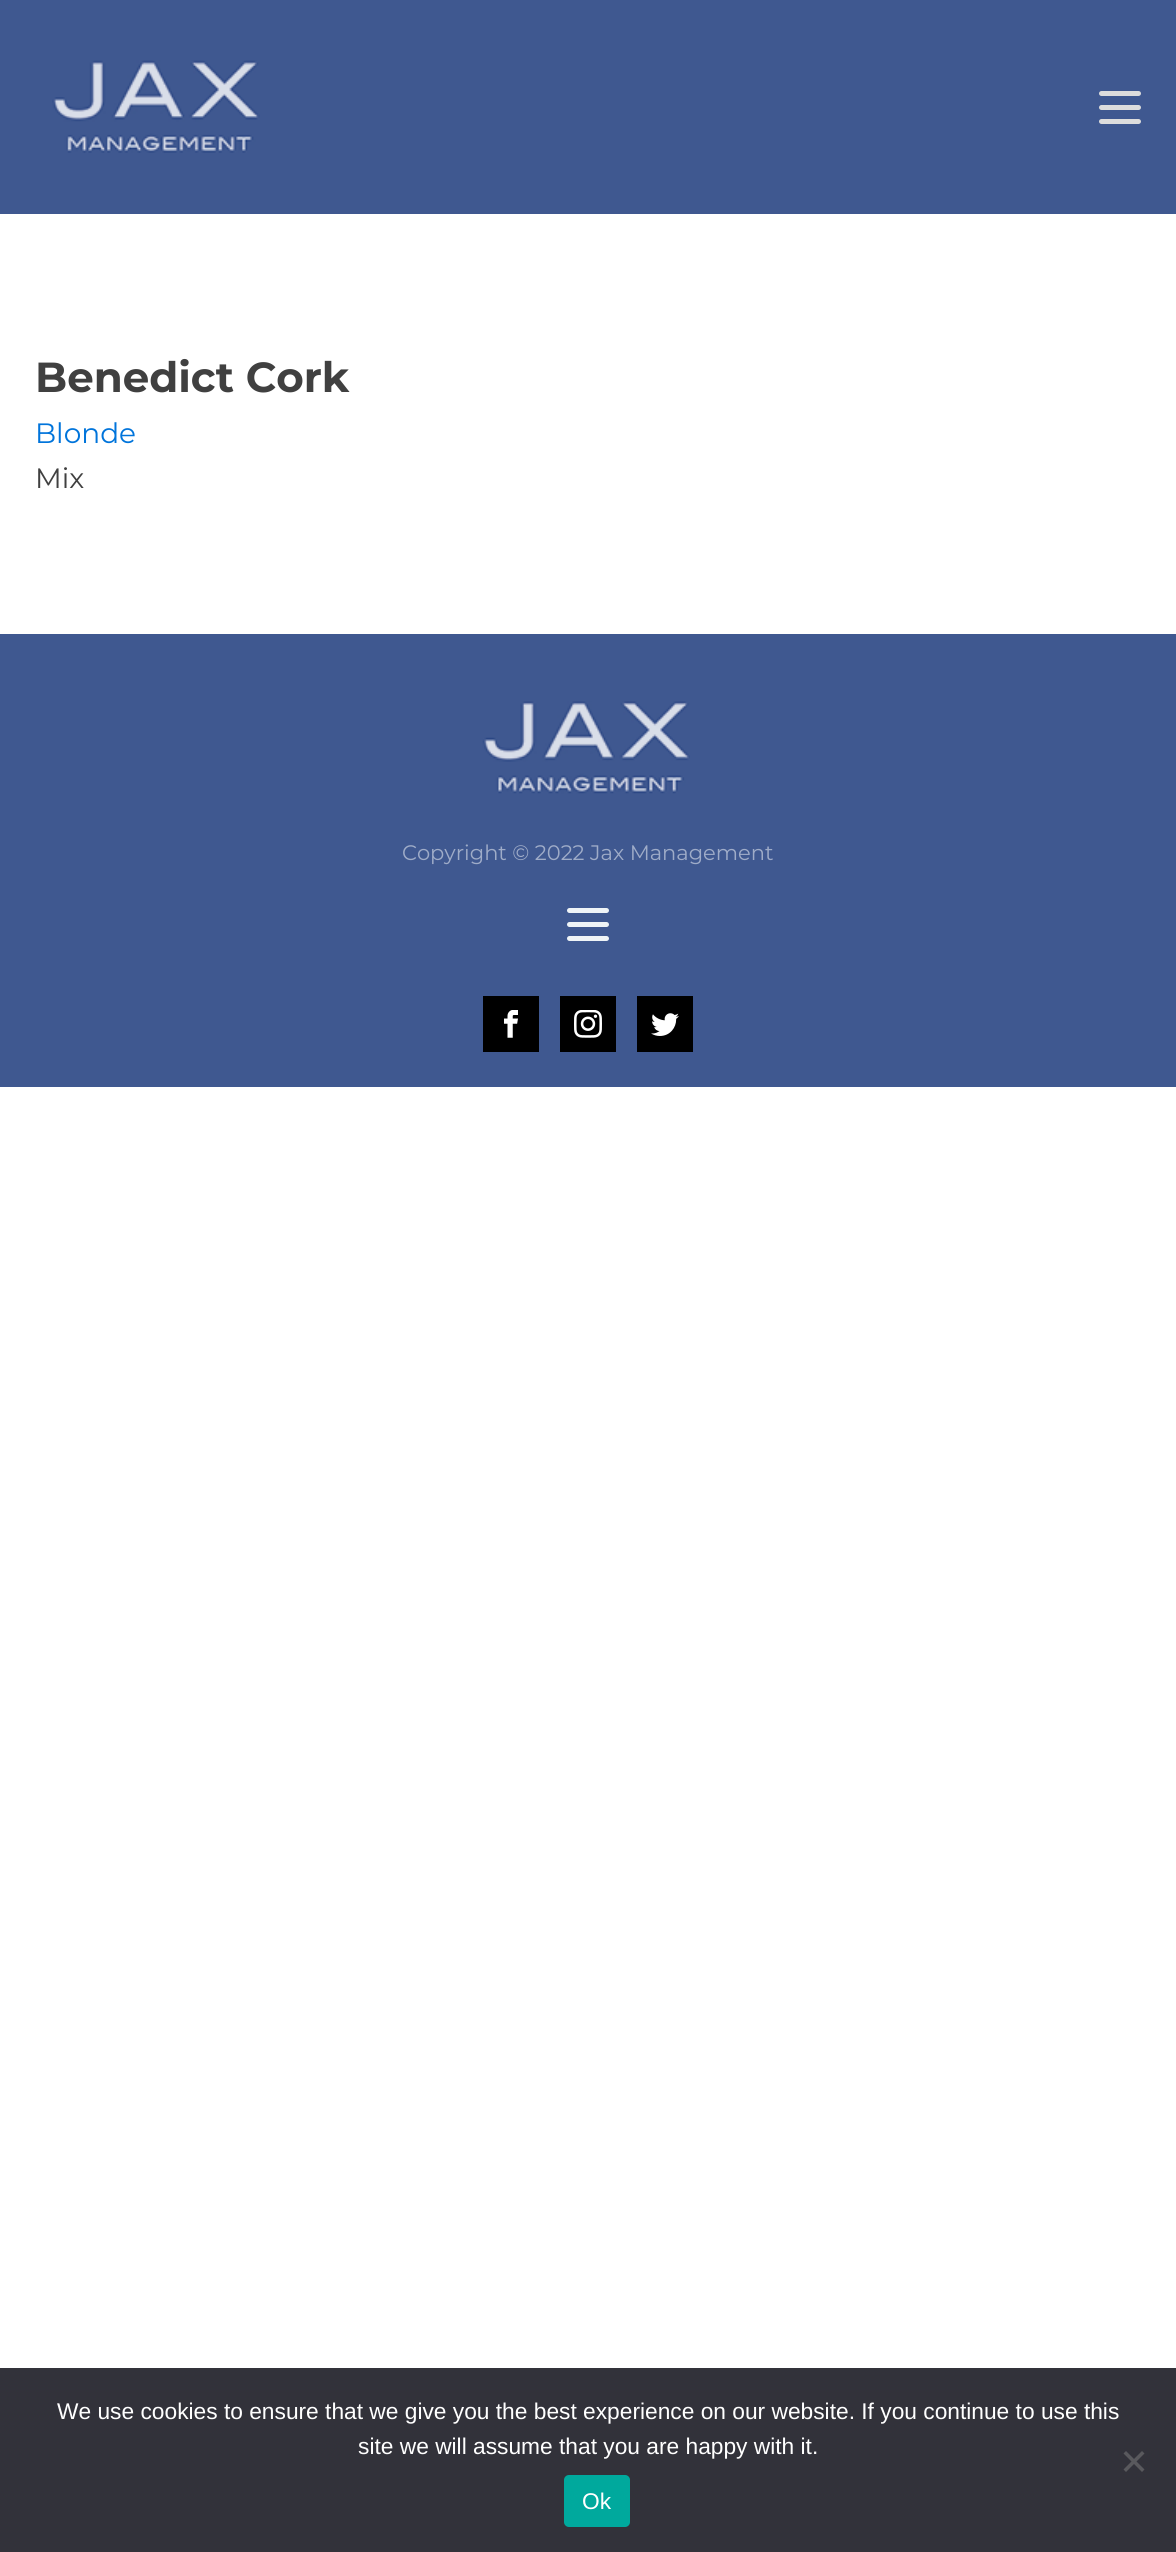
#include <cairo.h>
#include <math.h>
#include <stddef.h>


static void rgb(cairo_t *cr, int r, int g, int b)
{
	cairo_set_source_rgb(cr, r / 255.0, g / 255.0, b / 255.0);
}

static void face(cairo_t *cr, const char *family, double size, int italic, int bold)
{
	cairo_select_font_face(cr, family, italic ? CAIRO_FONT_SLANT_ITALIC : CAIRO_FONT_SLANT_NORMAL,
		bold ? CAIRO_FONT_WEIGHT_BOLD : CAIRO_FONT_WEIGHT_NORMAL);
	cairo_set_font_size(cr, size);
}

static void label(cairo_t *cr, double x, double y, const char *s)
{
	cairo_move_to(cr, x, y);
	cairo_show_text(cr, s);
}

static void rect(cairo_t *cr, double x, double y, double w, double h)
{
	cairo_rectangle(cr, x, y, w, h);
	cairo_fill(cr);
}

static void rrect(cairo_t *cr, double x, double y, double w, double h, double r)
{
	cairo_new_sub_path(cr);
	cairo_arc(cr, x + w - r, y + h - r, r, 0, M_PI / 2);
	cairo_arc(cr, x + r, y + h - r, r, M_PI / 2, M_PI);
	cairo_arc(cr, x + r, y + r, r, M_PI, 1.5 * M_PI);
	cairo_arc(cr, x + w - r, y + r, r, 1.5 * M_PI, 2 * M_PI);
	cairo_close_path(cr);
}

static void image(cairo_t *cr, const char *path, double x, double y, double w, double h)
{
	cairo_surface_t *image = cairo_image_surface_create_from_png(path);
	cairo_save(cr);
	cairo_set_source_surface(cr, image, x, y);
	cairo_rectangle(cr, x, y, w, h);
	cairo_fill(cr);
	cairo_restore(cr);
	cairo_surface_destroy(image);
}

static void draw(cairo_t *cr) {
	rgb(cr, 255, 255, 255);
	cairo_paint(cr);
	rgb(cr, 63, 88, 144);
	rect(cr, 0, 0, 1176, 214);
	image(cr, "image0.png", 52, 60, 208, 93);
	rgb(cr, 221, 221, 221);
	rrect(cr, 1099, 91, 42, 5, 2.5);
	cairo_fill(cr);
	rrect(cr, 1099, 105, 42, 5, 2.5);
	cairo_fill(cr);
	rrect(cr, 1099, 119, 42, 5, 2.5);
	cairo_fill(cr);
	face(cr, "Montserrat", 42, 0, 1);
	rgb(cr, 64, 64, 64);
	label(cr, 35, 392, "Benedict Cork");
	face(cr, "Montserrat", 28, 0, 0);
	rgb(cr, 0, 116, 219);
	label(cr, 35, 443, "Blonde");
	rgb(cr, 64, 64, 64);
	label(cr, 35, 488, "Mix");
	rgb(cr, 63, 88, 144);
	rect(cr, 0, 634, 1176, 453);
	image(cr, "image1.png", 482, 701, 208, 93);
	face(cr, "Montserrat", 21, 0, 0);
	rgb(cr, 159, 172, 200);
	label(cr, 402, 860, "Copyright © 2022 Jax Management");
	rgb(cr, 239, 244, 247);
	rrect(cr, 567, 908, 42, 5, 2.5);
	cairo_fill(cr);
	rrect(cr, 567, 922, 42, 5, 2.5);
	cairo_fill(cr);
	rrect(cr, 567, 936, 42, 5, 2.5);
	cairo_fill(cr);
	rgb(cr, 0, 0, 0);
	rect(cr, 483, 996, 56, 56);
	image(cr, "image2.png", 504, 1010, 14, 28);
	rect(cr, 560, 996, 56, 56);
	image(cr, "image3.png", 574, 1010, 28, 28);
	rect(cr, 637, 996, 56, 56);
	image(cr, "image4.png", 651, 1013, 28, 23);
	rgb(cr, 50, 50, 58);
	rect(cr, 0, 2368, 1176, 184);
	face(cr, "Liberation Sans", 22.75, 0, 0);
	rgb(cr, 255, 255, 255);
	label(cr, 57, 2419, "We use cookies to ensure that we give you the best experience on our website. If you continue to use this");
	label(cr, 358, 2454, "site we will assume that you are happy with it.");
	rgb(cr, 89, 89, 93);
	cairo_new_path(cr);
	cairo_move_to(cr, 1142, 2451);
	cairo_line_to(cr, 1144.5, 2453.5);
	cairo_line_to(cr, 1126, 2472);
	cairo_line_to(cr, 1123.5, 2469.5);
	cairo_close_path(cr);
	cairo_fill(cr);
	cairo_new_path(cr);
	cairo_move_to(cr, 1123.5, 2453.5);
	cairo_line_to(cr, 1126, 2451);
	cairo_line_to(cr, 1144.5, 2469.5);
	cairo_line_to(cr, 1142, 2472);
	cairo_close_path(cr);
	cairo_fill(cr);
	rgb(cr, 0, 169, 157);
	rrect(cr, 564, 2475, 66, 52, 5);
	cairo_fill(cr);
	rgb(cr, 255, 255, 255);
	label(cr, 582, 2509, "Ok");
}

int main(void) {
	cairo_surface_t *surface = cairo_image_surface_create(CAIRO_FORMAT_RGB24, 1176, 2552);
	cairo_t *cr = cairo_create(surface);
	cairo_font_options_t *options = cairo_font_options_create();
	cairo_font_options_set_hint_metrics(options, CAIRO_HINT_METRICS_OFF);
	cairo_font_options_set_hint_style(options, CAIRO_HINT_STYLE_NONE);
	cairo_set_font_options(cr, options);
	cairo_set_miter_limit(cr, 4);
	draw(cr);
	cairo_surface_write_to_png(surface, "render.png");
	cairo_font_options_destroy(options);
	cairo_destroy(cr);
	cairo_surface_destroy(surface);
	return 0;
}
